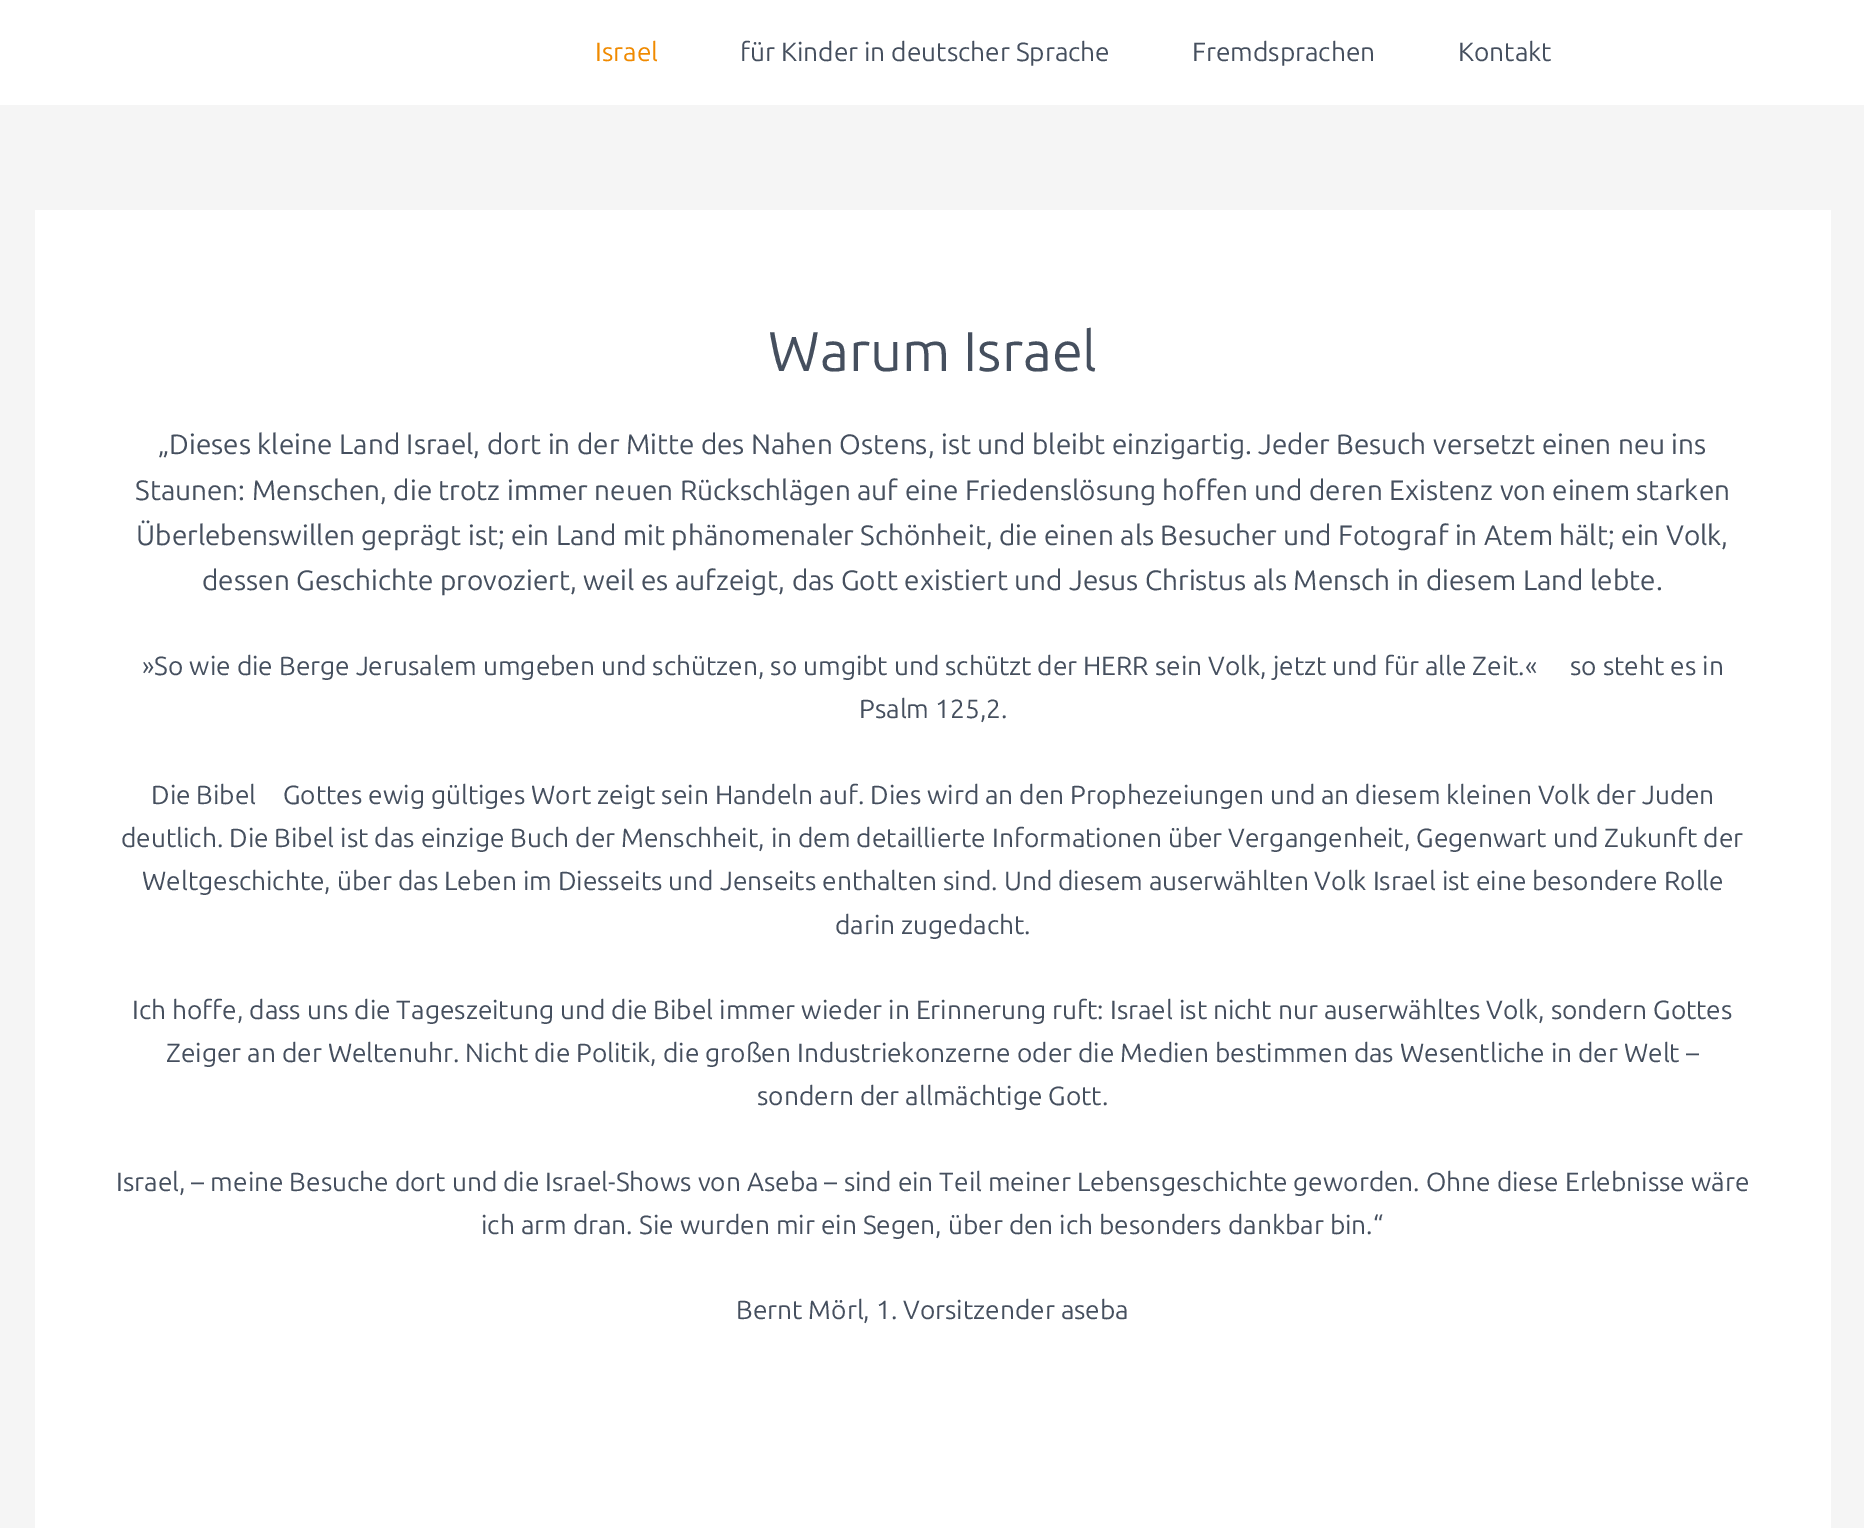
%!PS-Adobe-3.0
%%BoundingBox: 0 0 1864 1528
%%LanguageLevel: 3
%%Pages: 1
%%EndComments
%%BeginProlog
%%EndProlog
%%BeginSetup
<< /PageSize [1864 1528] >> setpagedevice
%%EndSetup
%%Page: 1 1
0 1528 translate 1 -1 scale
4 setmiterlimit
0.961 setgray
0 0 1864 1528 rectfill
1 setgray
0 0 1864 105 rectfill
35 210 1796 1318 rectfill
/Ubuntu-Regular [26.25 0 0 -26.25 0 0] selectfont
0.941 0.541 0 setrgbcolor
595 61 moveto (Israel) show
0.271 0.31 0.369 setrgbcolor
740 61 moveto (für Kinder in deutscher Sprache) show
1192 61 moveto (Fremdsprachen) show
1458 61 moveto (Kontakt) show
/Ubuntu-Regular [56 0 0 -56 0 0] selectfont
768 371 moveto (Warum Israel) show
/Ubuntu-Regular [28 0 0 -28 0 0] selectfont
158 454 moveto („Dieses kleine Land Israel, dort in der Mitte des Nahen Ostens, ist und bleibt einzigartig. Jeder Besuch versetzt einen neu ins) show
135 500 moveto (Staunen: Menschen, die trotz immer neuen Rückschlägen auf eine Friedenslösung hoffen und deren Existenz von einem starken) show
136 545 moveto (Überlebenswillen geprägt ist; ein Land mit phänomenaler Schönheit, die einen als Besucher und Fotograf in Atem hält; ein Volk,) show
202 590 moveto (dessen Geschichte provoziert, weil es aufzeigt, das Gott existiert und Jesus Christus als Mensch in diesem Land lebte.) show
/Ubuntu-Regular [26.25 0 0 -26.25 0 0] selectfont
142 675 moveto (»So wie die Berge Jerusalem umgeben und schützen, so umgibt und schützt der HERR sein Volk, jetzt und für alle Zeit.«) show
1570 675 moveto (so steht es in) show
859 718 moveto (Psalm 125,2.) show
151 804 moveto (Die Bibel) show
283 804 moveto (Gottes ewig gültiges Wort zeigt sein Handeln auf. Dies wird an den Prophezeiungen und an diesem kleinen Volk der Juden) show
121 847 moveto (deutlich. Die Bibel ist das einzige Buch der Menschheit, in dem detaillierte Informationen über Vergangenheit, Gegenwart und Zukunft der) show
142 890 moveto (Weltgeschichte, über das Leben im Diesseits und Jenseits enthalten sind. Und diesem auserwählten Volk Israel ist eine besondere Rolle) show
835 934 moveto (darin zugedacht.) show
132 1019 moveto (Ich hoffe, dass uns die Tageszeitung und die Bibel immer wieder in Erinnerung ruft: Israel ist nicht nur auserwähltes Volk, sondern Gottes) show
166 1062 moveto (Zeiger an der Weltenuhr. Nicht die Politik, die großen Industriekonzerne oder die Medien bestimmen das Wesentliche in der Welt –) show
757 1105 moveto (sondern der allmächtige Gott.) show
116 1191 moveto (Israel, – meine Besuche dort und die Israel-Shows von Aseba – sind ein Teil meiner Lebensgeschichte geworden. Ohne diese Erlebnisse wäre) show
481 1234 moveto (ich arm dran. Sie wurden mir ein Segen, über den ich besonders dankbar bin.“) show
736 1319 moveto (Bernt Mörl, 1. Vorsitzender aseba) show
showpage
%%EOF
